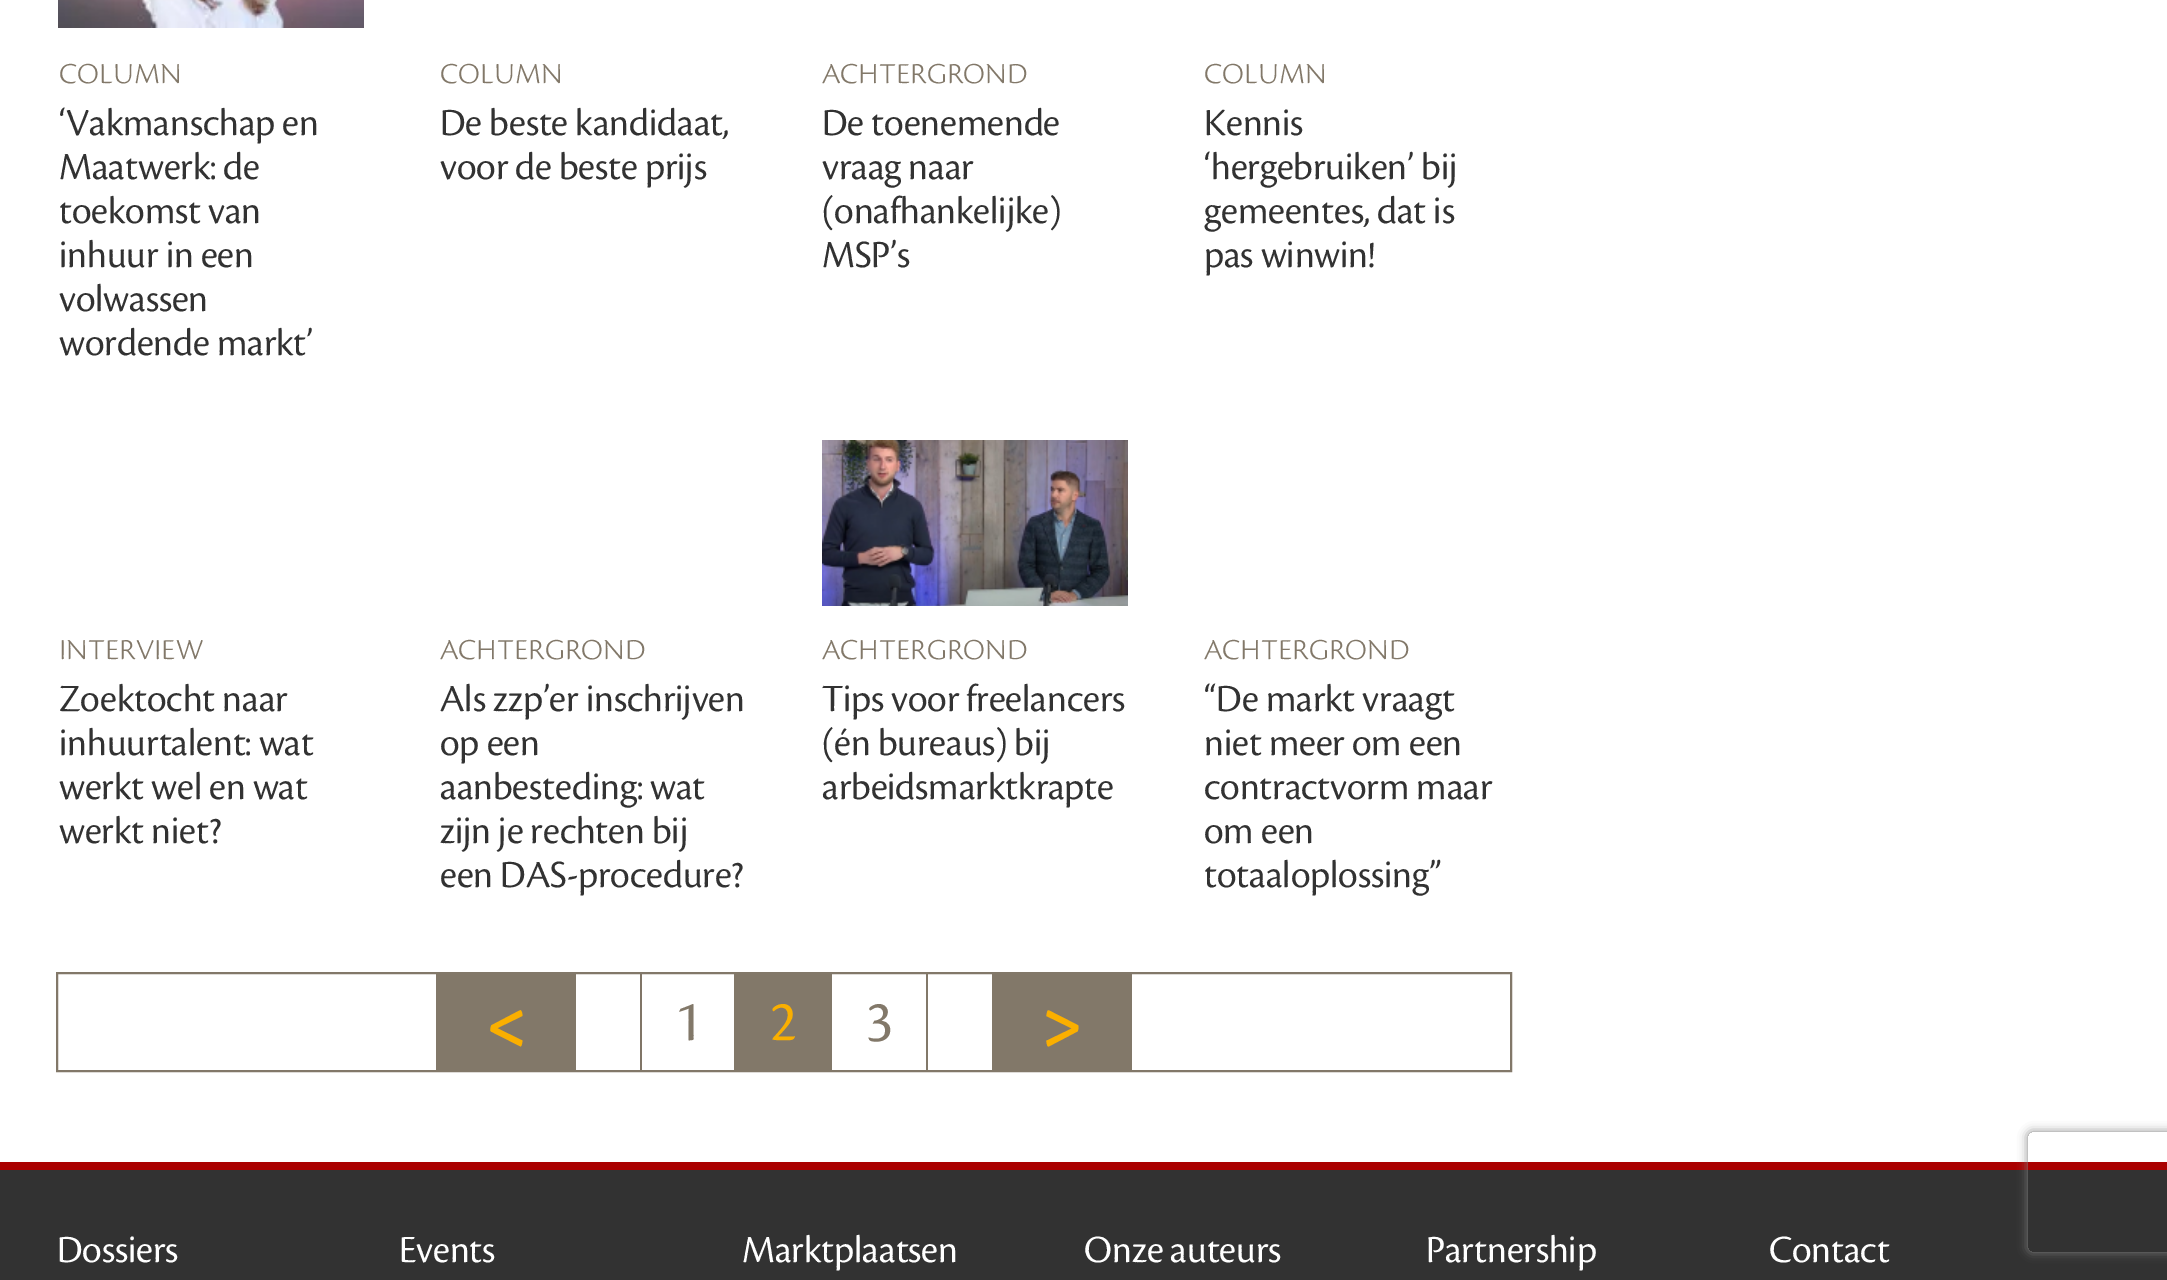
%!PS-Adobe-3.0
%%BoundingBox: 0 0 2167 1280
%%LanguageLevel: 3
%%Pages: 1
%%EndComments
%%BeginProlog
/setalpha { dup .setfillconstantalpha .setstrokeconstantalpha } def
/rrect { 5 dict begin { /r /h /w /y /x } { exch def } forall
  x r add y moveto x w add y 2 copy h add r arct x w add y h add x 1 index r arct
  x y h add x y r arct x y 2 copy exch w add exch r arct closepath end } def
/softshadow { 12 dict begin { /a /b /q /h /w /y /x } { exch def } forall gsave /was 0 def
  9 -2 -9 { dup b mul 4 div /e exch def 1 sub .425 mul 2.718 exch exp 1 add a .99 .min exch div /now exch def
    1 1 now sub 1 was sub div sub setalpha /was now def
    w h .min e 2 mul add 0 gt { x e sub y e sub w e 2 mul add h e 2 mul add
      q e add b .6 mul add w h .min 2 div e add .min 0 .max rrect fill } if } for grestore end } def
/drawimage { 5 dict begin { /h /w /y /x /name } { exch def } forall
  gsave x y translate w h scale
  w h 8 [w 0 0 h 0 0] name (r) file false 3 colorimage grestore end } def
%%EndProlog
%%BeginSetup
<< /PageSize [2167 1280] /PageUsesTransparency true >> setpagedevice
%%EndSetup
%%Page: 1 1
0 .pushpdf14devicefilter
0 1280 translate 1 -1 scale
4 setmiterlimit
1 setgray
0 0 2167 1280 rectfill
(images/1.raw) 58 0 306 28 drawimage
(images/2.raw) 822 440 306 166 drawimage
0.51 0.471 0.412 setrgbcolor
2 setlinewidth
57 973 1454 98 rectstroke
436 974 140 96 rectfill
734 974 98 96 rectfill
0.502 0.459 0.404 setrgbcolor
640 974 2 96 rectfill
0.51 0.471 0.412 setrgbcolor
926 974 2 96 rectfill
992 974 140 96 rectfill
0.196 setgray
0 1170 2167 110 rectfill
0.667 0 0 setrgbcolor
0 1162 2167 8 rectfill
gsave
newpath 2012 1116 moveto 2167 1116 lineto 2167 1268 lineto 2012 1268 lineto closepath 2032 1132 moveto 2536 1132 lineto 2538 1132 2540 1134 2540 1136 curveto 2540 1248 lineto 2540 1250 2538 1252 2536 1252 curveto 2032 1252 lineto 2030 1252 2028 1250 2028 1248 curveto 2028 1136 lineto 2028 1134 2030 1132 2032 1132 curveto closepath eoclip newpath
0.502 setgray
2028 1132 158 120 4 5 1 softshadow
grestore
/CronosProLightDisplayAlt-Light [40 0 0 -40 0 0] selectfont
0.51 0.471 0.412 setrgbcolor
59 83 moveto (column) show
/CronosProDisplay-Regular [40 0 0 -40 0 0] selectfont
0.196 setgray
59 135 moveto (‘Vakmanschap en) show
59 179 moveto (Maatwerk: de) show
59 223 moveto (toekomst van) show
59 267 moveto (inhuur in een) show
59 311 moveto (volwassen) show
59 355 moveto (wordende markt’) show
/CronosProLightDisplayAlt-Light [40 0 0 -40 0 0] selectfont
0.51 0.471 0.412 setrgbcolor
440 83 moveto (column) show
/CronosProDisplay-Regular [40 0 0 -40 0 0] selectfont
0.196 setgray
440 135 moveto (De beste kandidaat,) show
440 179 moveto (voor de beste prijs) show
/CronosProLightDisplayAlt-Light [40 0 0 -40 0 0] selectfont
0.51 0.471 0.412 setrgbcolor
822 83 moveto (achtergrond) show
/CronosProDisplay-Regular [40 0 0 -40 0 0] selectfont
0.196 setgray
822 135 moveto (De toenemende) show
822 179 moveto (vraag naar) show
822 223 moveto (\(onafhankelijke\)) show
822 267 moveto (MSP’s) show
/CronosProLightDisplayAlt-Light [40 0 0 -40 0 0] selectfont
0.51 0.471 0.412 setrgbcolor
1204 83 moveto (column) show
/CronosProDisplay-Regular [40 0 0 -40 0 0] selectfont
0.196 setgray
1204 135 moveto (Kennis) show
1204 179 moveto (‘hergebruiken’ bij) show
1204 223 moveto (gemeentes, dat is) show
1204 267 moveto (pas winwin!) show
/CronosProLightDisplayAlt-Light [40 0 0 -40 0 0] selectfont
0.51 0.471 0.412 setrgbcolor
59 659 moveto (interview) show
/CronosProDisplay-Regular [40 0 0 -40 0 0] selectfont
0.196 setgray
59 711 moveto (Zoektocht naar) show
59 755 moveto (inhuurtalent: wat) show
59 799 moveto (werkt wel en wat) show
59 843 moveto (werkt niet?) show
/CronosProLightDisplayAlt-Light [40 0 0 -40 0 0] selectfont
0.51 0.471 0.412 setrgbcolor
440 659 moveto (achtergrond) show
/CronosProDisplay-Regular [40 0 0 -40 0 0] selectfont
0.196 setgray
440 711 moveto (Als zzp’er inschrijven) show
440 755 moveto (op een) show
440 799 moveto (aanbesteding: wat) show
440 843 moveto (zijn je rechten bij) show
440 887 moveto (een DAS-procedure?) show
/CronosProLightDisplayAlt-Light [40 0 0 -40 0 0] selectfont
0.51 0.471 0.412 setrgbcolor
822 659 moveto (achtergrond) show
/CronosProDisplay-Regular [40 0 0 -40 0 0] selectfont
0.196 setgray
822 711 moveto (Tips voor freelancers) show
822 755 moveto (\(én bureaus\) bij) show
822 799 moveto (arbeidsmarktkrapte) show
/CronosProLightDisplayAlt-Light [40 0 0 -40 0 0] selectfont
0.51 0.471 0.412 setrgbcolor
1204 659 moveto (achtergrond) show
/CronosProDisplay-Regular [40 0 0 -40 0 0] selectfont
0.196 setgray
1204 711 moveto (“De markt vraagt) show
1204 755 moveto (niet meer om een) show
1204 799 moveto (contractvorm maar) show
1204 843 moveto (om een) show
1204 887 moveto (totaaloplossing”) show
/CronosProDisplay-Bold [80 0 0 -80 0 0] selectfont
0.98 0.686 0 setrgbcolor
484 1046 moveto (<) show
/CronosProDisplay-Regular [60 0 0 -60 0 0] selectfont
0.51 0.471 0.412 setrgbcolor
675 1040 moveto (1) show
0.98 0.686 0 setrgbcolor
770 1040 moveto (2) show
0.51 0.471 0.412 setrgbcolor
866 1040 moveto (3) show
/CronosProDisplay-Bold [80 0 0 -80 0 0] selectfont
0.98 0.686 0 setrgbcolor
1040 1046 moveto (>) show
/CronosProDisplay-Regular [40 0 0 -40 0 0] selectfont
1 setgray
57 1262 moveto (Dossiers) show
399 1262 moveto (Events) show
742 1262 moveto (Marktplaatsen) show
1084 1262 moveto (Onze auteurs) show
1426 1262 moveto (Partnership) show
1769 1262 moveto (Contact) show
.poppdf14devicefilter showpage
%%EOF
